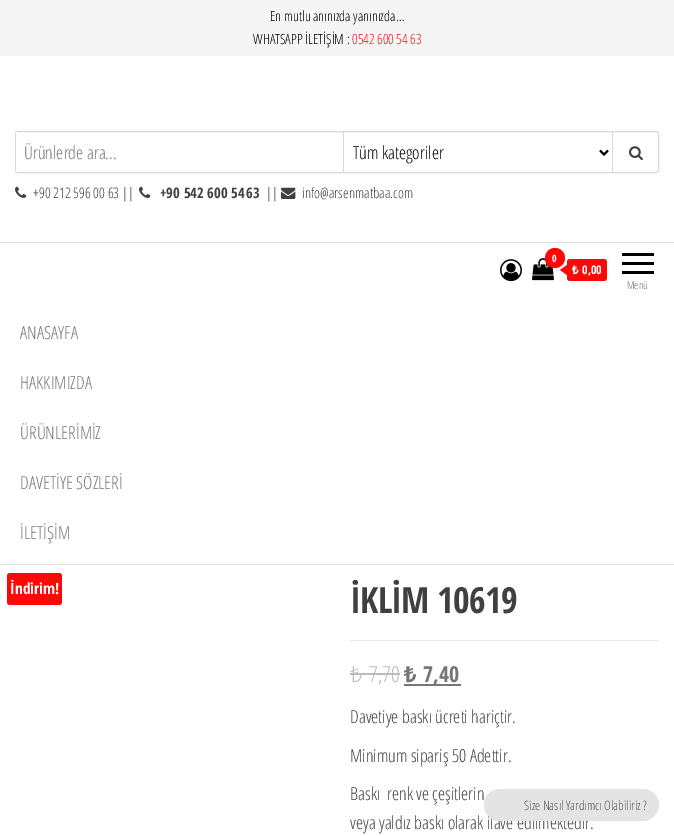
%!PS-Adobe-3.0
%%BoundingBox: 0 0 674 836
%%LanguageLevel: 3
%%Pages: 1
%%EndComments
%%BeginProlog
/rrect { 5 dict begin { /r /h /w /y /x } { exch def } forall
  x r add y moveto x w add y 2 copy h add r arct x w add y h add x 1 index r arct
  x y h add x y r arct x y 2 copy exch w add exch r arct closepath end } def
/drawimage { 5 dict begin { /h /w /y /x /name } { exch def } forall
  gsave x y translate w h scale
  w h 8 [w 0 0 h 0 0] name (r) file false 3 colorimage grestore end } def
%%EndProlog
%%BeginSetup
<< /PageSize [674 836] >> setpagedevice
%%EndSetup
%%Page: 1 1
0 836 translate 1 -1 scale
4 setmiterlimit
1 setgray
0 0 674 836 rectfill
0.961 setgray
0 0 674 56 rectfill
0.851 setgray
15.5 131.5 643 41 2.5 rrect stroke
1 setgray
16 132 2 40 rectfill
0.851 setgray
343 132 1 40 rectfill
0 setgray
2 setlinewidth
newpath 600 150.5 moveto 604 154.5 lineto 608 150.5 lineto stroke
0.851 setgray
612 132 1 40 rectfill
(images/1.raw) 629 146 14 15 drawimage
(images/2.raw) 15 186 12 12 drawimage
(images/2.raw) 139 186 12 12 drawimage
(images/3.raw) 281 187 15 12 drawimage
0.886 setgray
0 242 674 1 rectfill
0 564 674 1 rectfill
(images/4.raw) 500 259 22 23 drawimage
(images/5.raw) 532 258 22 23 drawimage
1 0.027 0.027 setrgbcolor
newpath 555 258 10 0 360 arc closepath fill
567 259 40 22 3 rrect fill
newpath 567 265 moveto 567 275 lineto 560 270 lineto closepath fill
0 setgray
622 253 32 3 rectfill
622 262 32 3 rectfill
622 271 32 3 rectfill
1 0.027 0.027 setrgbcolor
7 573 55 32 3 rrect fill
0.918 setgray
350 640 309 1 rectfill
0.733 setgray
350 673 13 2 rectfill
363 673 37 2 rectfill
0.467 setgray
404 684 57 2 rectfill
/OpenSansCondensed-Light [14 0 0 -14 0 0] selectfont
0 setgray
270 21 moveto (En mutlu anınızda yanınızda…) show
253 44 moveto (WHATSAPP İLETİŞİM :) show
1 0.027 0.027 setrgbcolor
352 44 moveto (0542 600 54 63) show
/OpenSansCondensed-Light [18 0 0 -18 0 0] selectfont
0.459 setgray
24 159 moveto (Ürünlerde ara...) show
0 setgray
353 159 moveto (Tüm kategoriler) show
/OpenSansCondensed-Light [14.5 0 0 -14.5 0 0] selectfont
0.251 setgray
33 198 moveto (+90 212 596 00 63 ||) show
/OpenSansCondensed-Bold [14.5 0 0 -14.5 0 0] selectfont
160 198 moveto (+90 542 600 54) show
246 198 moveto (63) show
/OpenSansCondensed-Light [14.5 0 0 -14.5 0 0] selectfont
266 198 moveto (||) show
302 198 moveto (info@arsenmatbaa.com) show
/OpenSansCondensed-Bold [10 0 0 -10 0 0] selectfont
1 setgray
552 262 moveto (0) show
/NotoSans-Bold [12 0 0 -12 0 0] selectfont
572 274 moveto (₺) show
/OpenSansCondensed-Bold [12 0 0 -12 0 0] selectfont
582 274 moveto (0,00) show
/OpenSansCondensed-Light [11 0 0 -11 0 0] selectfont
0.459 setgray
627 289 moveto (Menü) show
/OpenSansCondensed-Light [18 0 0 -18 0 0] selectfont
20 339 moveto (ANASAYFA) show
20 389 moveto (HAKKIMIZDA) show
20 439 moveto (ÜRÜNLERİMİZ) show
20 489 moveto (DAVETİYE SÖZLERİ) show
20 539 moveto (İLETİŞİM) show
/OpenSansCondensed-Bold [15.5 0 0 -15.5 0 0] selectfont
1 setgray
10 594 moveto (İndirim!) show
/OpenSansCondensed-Bold [36 0 0 -36 0 0] selectfont
0.251 setgray
350 613 moveto -0.75 0 (İKLİM 10619) ashow
/NotoSans-Light [22 0 0 -22 0 0] selectfont
0.733 setgray
350 682 moveto (₺) show
/OpenSansCondensed-Light [22 0 0 -22 0 0] selectfont
369 682 moveto (7,70) show
/NotoSans-Bold [22 0 0 -22 0 0] selectfont
0.459 setgray
404 682 moveto (₺) show
/OpenSansCondensed-Bold [22 0 0 -22 0 0] selectfont
423 682 moveto (7,40) show
/OpenSansCondensed-Light [18 0 0 -18 0 0] selectfont
0.251 setgray
350 723 moveto (Davetiye baskı ücreti hariçtir.) show
350 762 moveto (Minimum sipariş 50 Adettir.) show
350 800 moveto (Baskı  renk ve çeşitlerin) show
350 829 moveto (veya yaldız baskı olarak ilave edilmektedir.) show
0.894 setgray
484 789 175 32 16 rrect fill
/OpenSansCondensed-Light [13 0 0 -13 0 0] selectfont
0.357 setgray
524 810 moveto (Size Nasıl Yardımcı Olabiliriz ?) show
showpage
%%EOF
